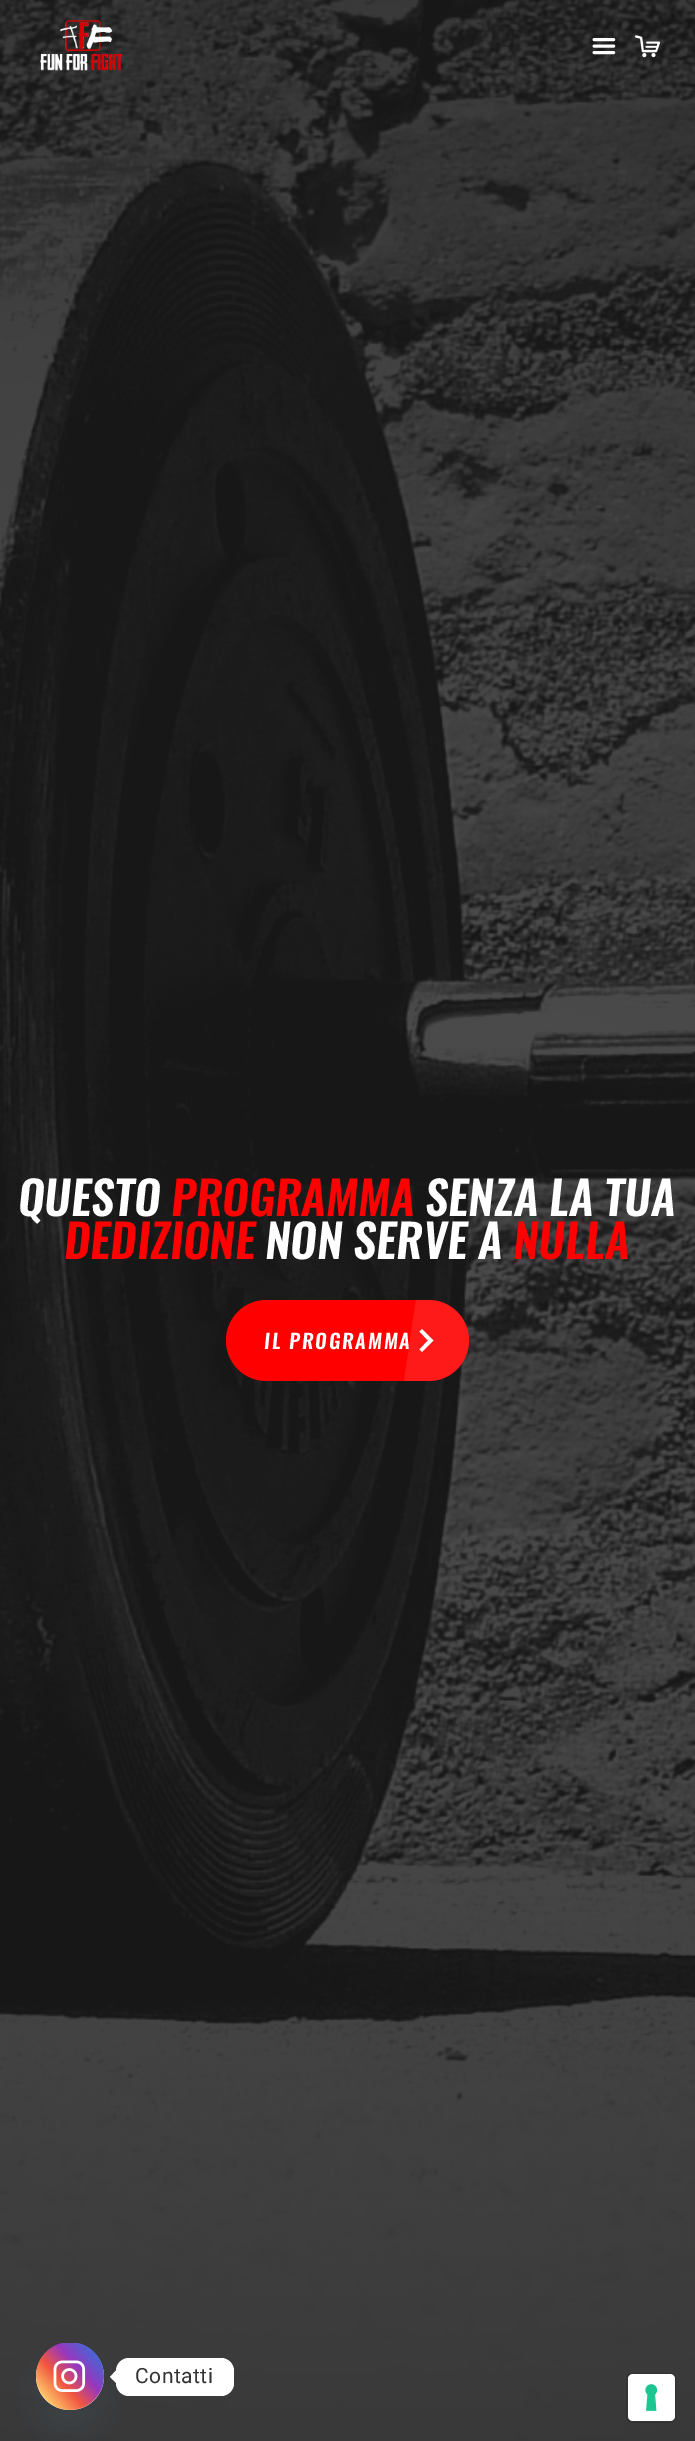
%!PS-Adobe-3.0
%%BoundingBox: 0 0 695 2441
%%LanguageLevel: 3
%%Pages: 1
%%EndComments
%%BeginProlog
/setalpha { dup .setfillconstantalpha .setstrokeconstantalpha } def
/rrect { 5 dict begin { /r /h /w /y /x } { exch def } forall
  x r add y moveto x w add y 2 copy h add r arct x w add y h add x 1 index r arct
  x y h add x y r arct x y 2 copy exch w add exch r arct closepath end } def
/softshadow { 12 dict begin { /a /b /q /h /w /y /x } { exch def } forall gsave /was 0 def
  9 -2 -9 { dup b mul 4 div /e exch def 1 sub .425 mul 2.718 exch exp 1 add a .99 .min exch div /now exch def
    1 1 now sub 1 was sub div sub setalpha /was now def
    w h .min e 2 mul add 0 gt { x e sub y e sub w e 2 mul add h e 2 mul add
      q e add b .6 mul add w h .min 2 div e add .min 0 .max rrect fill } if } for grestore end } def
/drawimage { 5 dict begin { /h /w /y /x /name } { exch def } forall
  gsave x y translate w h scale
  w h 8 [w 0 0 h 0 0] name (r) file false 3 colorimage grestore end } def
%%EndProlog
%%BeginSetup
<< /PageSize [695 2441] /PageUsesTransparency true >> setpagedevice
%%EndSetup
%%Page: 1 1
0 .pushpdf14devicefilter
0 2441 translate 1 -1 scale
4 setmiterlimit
1 setgray
0 0 695 2441 rectfill
(images/4.raw) 0 0 695 2441 drawimage
(images/1.raw) 40 20 83 51 drawimage
(images/2.raw) 592 38 24 17 drawimage
(images/3.raw) 635 35 25 23 drawimage
1 0 0 setrgbcolor
226 1300 243 81 40.5 rrect fill
0.1 setalpha
1 setgray
newpath 404 1381 moveto 416 1300 lineto 428 1300 lineto 451 1300 469 1318 469 1340 curveto 469 1363 451 1381 428 1381 curveto closepath fill
1 setalpha
newpath 422 1329 moveto 419.5 1331.5 lineto 428 1340.5 lineto 419.5 1349.5 lineto 422 1352 lineto 433.5 1340.5 lineto closepath fill
0.286 0.408 0.494 setrgbcolor
36 2363 68 67 33.5 15 0.16 softshadow
1 setgray
36 2343 68 67 33.5 rrect fill
(images/5.raw) 36 2343 68 67 drawimage
116 2358 118 38 13 rrect fill
newpath 116 2370.5 moveto 116 2383 lineto 110 2377 lineto closepath fill
0.192 setgray
626.5 2373.5 49 49 5.5 rrect stroke
1 setgray
628 2374 47 47 5 rrect fill
(images/6.raw) 645 2384 13 27 drawimage
/Oswald-SemiBoldItalic [46.25 0 0 -46.25 0 0] selectfont
18 1216 moveto (QUESTO) show
1 0 0 setrgbcolor
171 1216 moveto (PROGRAMMA) show
1 setgray
425 1216 moveto (SENZA LA TUA) show
1 0 0 setrgbcolor
64 1259 moveto (DEDIZIONE) show
1 setgray
265 1259 moveto (NON SERVE A) show
1 0 0 setrgbcolor
513 1259 moveto (NULLA) show
/Oswald-SemiBoldItalic [20 0 0 -20 0 0] selectfont
1 setgray
264 1349 moveto 2 0 (IL PROGRAMMA) ashow
/Roboto-Regular [21 0 0 -21 0 0] selectfont
0.2 setgray
135 2383 moveto 0.5 0 (Contatti) ashow
.poppdf14devicefilter showpage
%%EOF
